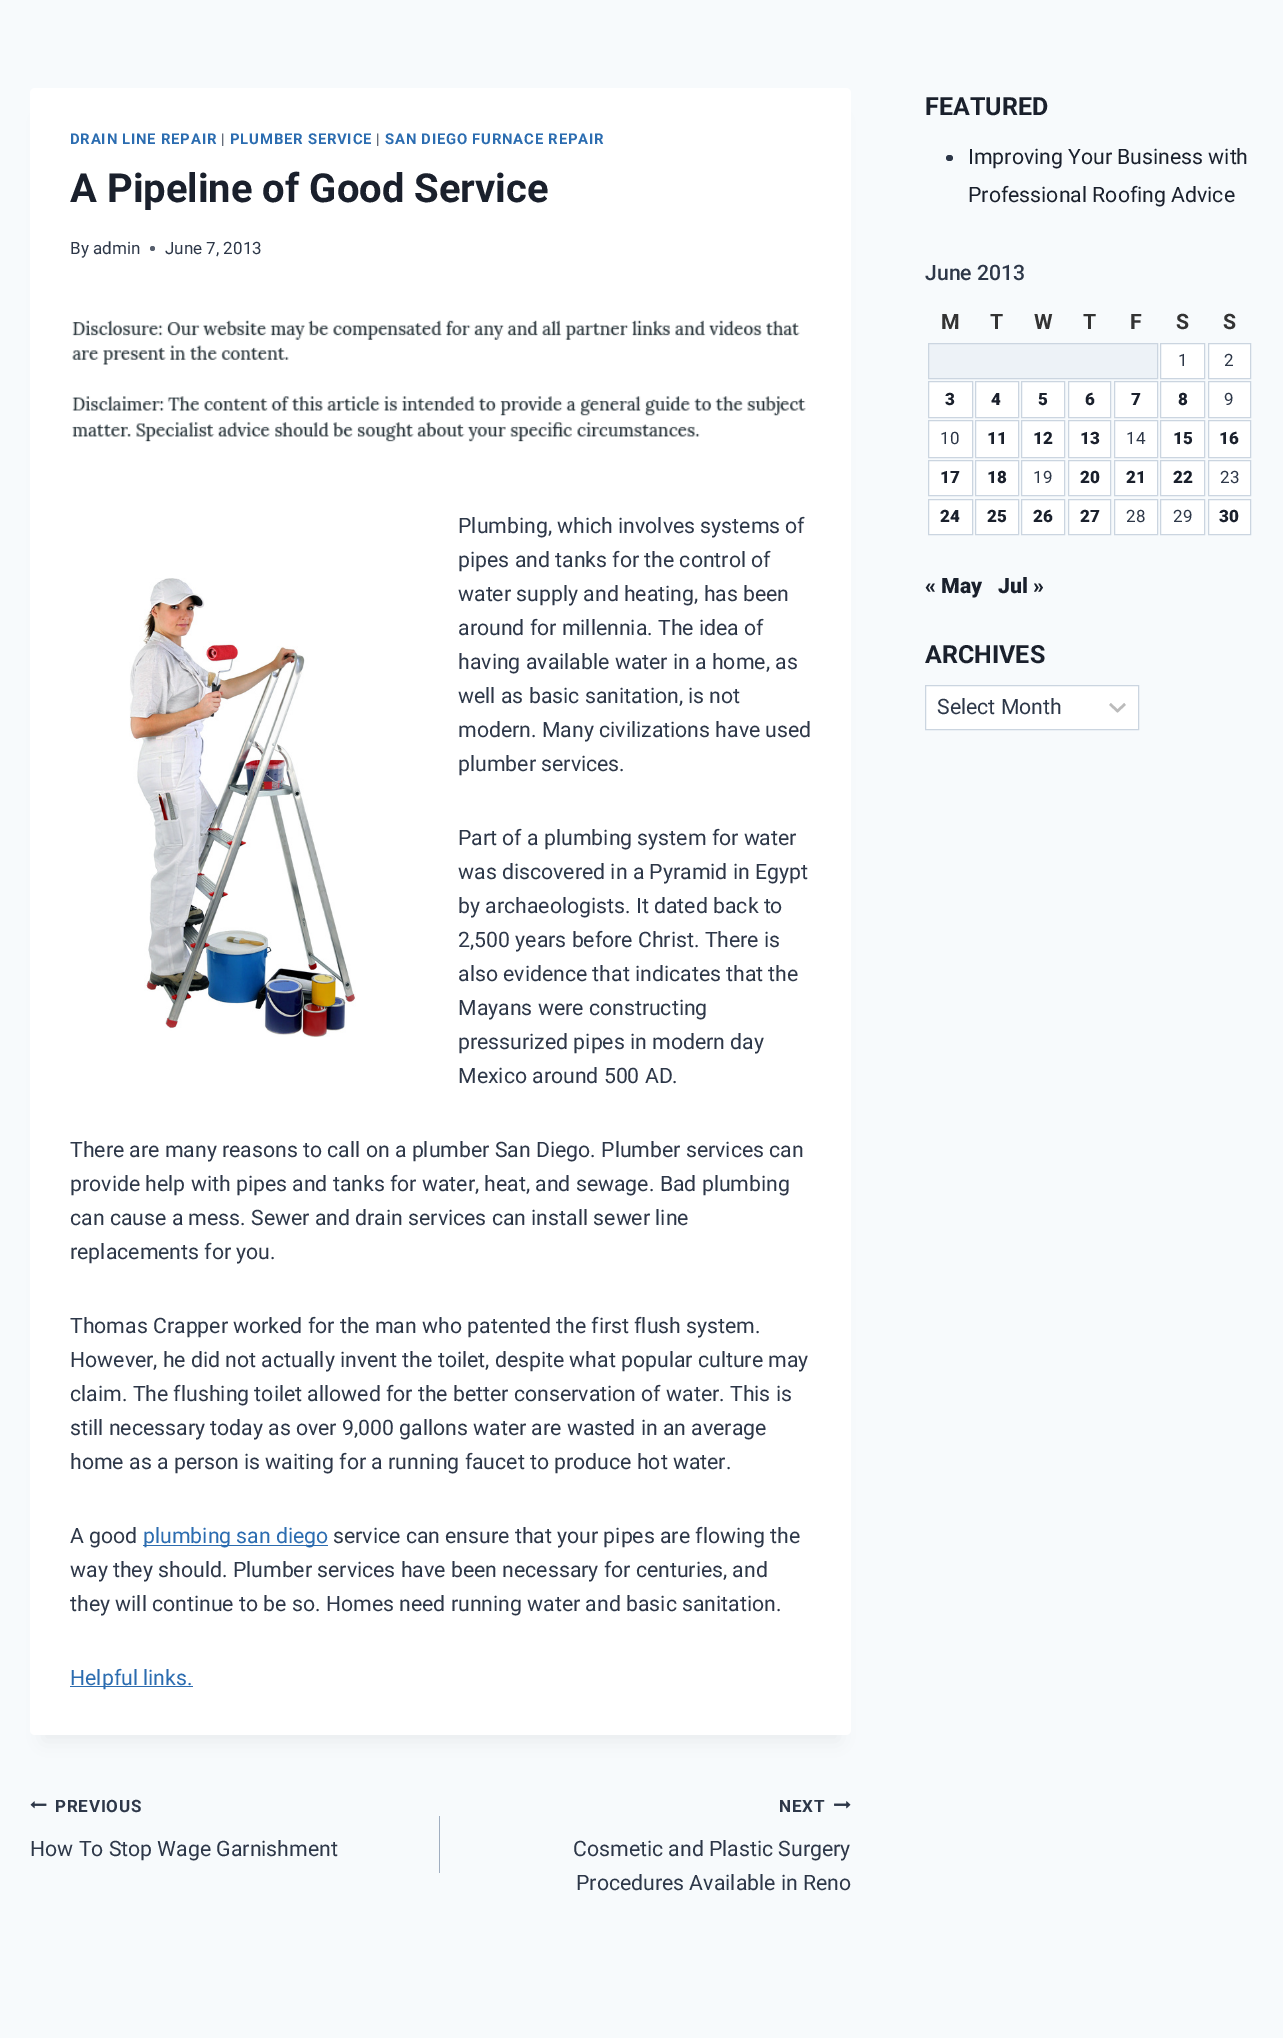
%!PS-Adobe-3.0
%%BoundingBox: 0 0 1283 2038
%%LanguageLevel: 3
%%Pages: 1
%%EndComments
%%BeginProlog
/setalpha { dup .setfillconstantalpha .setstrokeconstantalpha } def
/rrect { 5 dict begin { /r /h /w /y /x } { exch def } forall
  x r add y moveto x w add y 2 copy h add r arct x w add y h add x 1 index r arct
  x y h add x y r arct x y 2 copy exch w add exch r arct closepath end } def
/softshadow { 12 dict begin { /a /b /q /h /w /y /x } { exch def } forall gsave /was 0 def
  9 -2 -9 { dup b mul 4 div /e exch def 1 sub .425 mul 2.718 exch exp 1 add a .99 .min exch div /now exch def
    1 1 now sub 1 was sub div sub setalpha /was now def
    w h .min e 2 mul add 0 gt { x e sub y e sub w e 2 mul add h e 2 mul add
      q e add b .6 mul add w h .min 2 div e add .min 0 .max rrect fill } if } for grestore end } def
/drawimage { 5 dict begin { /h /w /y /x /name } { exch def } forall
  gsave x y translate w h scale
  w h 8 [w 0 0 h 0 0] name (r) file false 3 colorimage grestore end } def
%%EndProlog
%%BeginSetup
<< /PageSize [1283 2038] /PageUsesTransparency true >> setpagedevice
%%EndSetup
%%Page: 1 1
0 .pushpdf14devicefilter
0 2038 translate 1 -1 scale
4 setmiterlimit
0.969 0.98 0.988 setrgbcolor
0 0 1283 2038 rectfill
0 setgray
43 119 796 1622 0 9.5 0.05 softshadow
1 setgray
30 88 821 1647 5 rrect fill
0.341 0.373 0.427 setrgbcolor
newpath 152.5 248.5 2.5 0 360 arc closepath fill
(images/1.raw) 72 320 734 122 drawimage
(images/2.raw) 129 578 227 459 drawimage
0.169 0.424 0.69 setrgbcolor
143 1545 185 1 rectfill
70 1686 123 1 rectfill
(images/3.raw) 30 1801 17 8 drawimage
0.627 0.682 0.753 setrgbcolor
439 1816 1 57 rectfill
(images/4.raw) 834 1801 17 8 drawimage
0.176 0.216 0.282 setrgbcolor
946 155 7 6 3 rrect fill
0.929 0.949 0.969 setrgbcolor
newpath 928.5 343.5 moveto 1157.5 343.5 lineto 1157.5 378.5 lineto 928.5 378.5 lineto closepath gsave fill grestore
0.796 0.835 0.878 setrgbcolor
stroke
1 setgray
newpath 1160.5 343.5 moveto 1204.5 343.5 lineto 1204.5 378.5 lineto 1160.5 378.5 lineto closepath gsave fill grestore
0.796 0.835 0.878 setrgbcolor
stroke
1 setgray
newpath 1208.5 343.5 moveto 1250.5 343.5 lineto 1250.5 378.5 lineto 1208.5 378.5 lineto closepath gsave fill grestore
0.796 0.835 0.878 setrgbcolor
stroke
1 setgray
newpath 928.5 381.5 moveto 972.5 381.5 lineto 972.5 417.5 lineto 928.5 417.5 lineto closepath gsave fill grestore
0.796 0.835 0.878 setrgbcolor
stroke
1 setgray
newpath 975.5 381.5 moveto 1018.5 381.5 lineto 1018.5 417.5 lineto 975.5 417.5 lineto closepath gsave fill grestore
0.796 0.835 0.878 setrgbcolor
stroke
1 setgray
newpath 1021.5 381.5 moveto 1064.5 381.5 lineto 1064.5 417.5 lineto 1021.5 417.5 lineto closepath gsave fill grestore
0.796 0.835 0.878 setrgbcolor
stroke
1 setgray
newpath 1068.5 381.5 moveto 1110.5 381.5 lineto 1110.5 417.5 lineto 1068.5 417.5 lineto closepath gsave fill grestore
0.796 0.835 0.878 setrgbcolor
stroke
1 setgray
newpath 1114.5 381.5 moveto 1157.5 381.5 lineto 1157.5 417.5 lineto 1114.5 417.5 lineto closepath gsave fill grestore
0.796 0.835 0.878 setrgbcolor
stroke
1 setgray
newpath 1160.5 381.5 moveto 1204.5 381.5 lineto 1204.5 417.5 lineto 1160.5 417.5 lineto closepath gsave fill grestore
0.796 0.835 0.878 setrgbcolor
stroke
1 setgray
newpath 1208.5 381.5 moveto 1250.5 381.5 lineto 1250.5 417.5 lineto 1208.5 417.5 lineto closepath gsave fill grestore
0.796 0.835 0.878 setrgbcolor
stroke
1 setgray
newpath 928.5 420.5 moveto 972.5 420.5 lineto 972.5 457.5 lineto 928.5 457.5 lineto closepath gsave fill grestore
0.796 0.835 0.878 setrgbcolor
stroke
1 setgray
newpath 975.5 420.5 moveto 1018.5 420.5 lineto 1018.5 457.5 lineto 975.5 457.5 lineto closepath gsave fill grestore
0.796 0.835 0.878 setrgbcolor
stroke
1 setgray
newpath 1021.5 420.5 moveto 1064.5 420.5 lineto 1064.5 457.5 lineto 1021.5 457.5 lineto closepath gsave fill grestore
0.796 0.835 0.878 setrgbcolor
stroke
1 setgray
newpath 1068.5 420.5 moveto 1110.5 420.5 lineto 1110.5 457.5 lineto 1068.5 457.5 lineto closepath gsave fill grestore
0.796 0.835 0.878 setrgbcolor
stroke
1 setgray
newpath 1114.5 420.5 moveto 1157.5 420.5 lineto 1157.5 457.5 lineto 1114.5 457.5 lineto closepath gsave fill grestore
0.796 0.835 0.878 setrgbcolor
stroke
1 setgray
newpath 1160.5 420.5 moveto 1204.5 420.5 lineto 1204.5 457.5 lineto 1160.5 457.5 lineto closepath gsave fill grestore
0.796 0.835 0.878 setrgbcolor
stroke
1 setgray
newpath 1208.5 420.5 moveto 1250.5 420.5 lineto 1250.5 457.5 lineto 1208.5 457.5 lineto closepath gsave fill grestore
0.796 0.835 0.878 setrgbcolor
stroke
1 setgray
newpath 928.5 460.5 moveto 972.5 460.5 lineto 972.5 495.5 lineto 928.5 495.5 lineto closepath gsave fill grestore
0.796 0.835 0.878 setrgbcolor
stroke
1 setgray
newpath 975.5 460.5 moveto 1018.5 460.5 lineto 1018.5 495.5 lineto 975.5 495.5 lineto closepath gsave fill grestore
0.796 0.835 0.878 setrgbcolor
stroke
1 setgray
newpath 1021.5 460.5 moveto 1064.5 460.5 lineto 1064.5 495.5 lineto 1021.5 495.5 lineto closepath gsave fill grestore
0.796 0.835 0.878 setrgbcolor
stroke
1 setgray
newpath 1068.5 460.5 moveto 1110.5 460.5 lineto 1110.5 495.5 lineto 1068.5 495.5 lineto closepath gsave fill grestore
0.796 0.835 0.878 setrgbcolor
stroke
1 setgray
newpath 1114.5 460.5 moveto 1157.5 460.5 lineto 1157.5 495.5 lineto 1114.5 495.5 lineto closepath gsave fill grestore
0.796 0.835 0.878 setrgbcolor
stroke
1 setgray
newpath 1160.5 460.5 moveto 1204.5 460.5 lineto 1204.5 495.5 lineto 1160.5 495.5 lineto closepath gsave fill grestore
0.796 0.835 0.878 setrgbcolor
stroke
1 setgray
newpath 1208.5 460.5 moveto 1250.5 460.5 lineto 1250.5 495.5 lineto 1208.5 495.5 lineto closepath gsave fill grestore
0.796 0.835 0.878 setrgbcolor
stroke
1 setgray
newpath 928.5 499.5 moveto 972.5 499.5 lineto 972.5 534.5 lineto 928.5 534.5 lineto closepath gsave fill grestore
0.796 0.835 0.878 setrgbcolor
stroke
1 setgray
newpath 975.5 499.5 moveto 1018.5 499.5 lineto 1018.5 534.5 lineto 975.5 534.5 lineto closepath gsave fill grestore
0.796 0.835 0.878 setrgbcolor
stroke
1 setgray
newpath 1021.5 499.5 moveto 1064.5 499.5 lineto 1064.5 534.5 lineto 1021.5 534.5 lineto closepath gsave fill grestore
0.796 0.835 0.878 setrgbcolor
stroke
1 setgray
newpath 1068.5 499.5 moveto 1110.5 499.5 lineto 1110.5 534.5 lineto 1068.5 534.5 lineto closepath gsave fill grestore
0.796 0.835 0.878 setrgbcolor
stroke
1 setgray
newpath 1114.5 499.5 moveto 1157.5 499.5 lineto 1157.5 534.5 lineto 1114.5 534.5 lineto closepath gsave fill grestore
0.796 0.835 0.878 setrgbcolor
stroke
1 setgray
newpath 1160.5 499.5 moveto 1204.5 499.5 lineto 1204.5 534.5 lineto 1160.5 534.5 lineto closepath gsave fill grestore
0.796 0.835 0.878 setrgbcolor
stroke
1 setgray
newpath 1208.5 499.5 moveto 1250.5 499.5 lineto 1250.5 534.5 lineto 1208.5 534.5 lineto closepath gsave fill grestore
0.796 0.835 0.878 setrgbcolor
stroke
1 setgray
926 686 212 43 rectfill
0.733 setgray
2.5 setlinewidth
newpath 1110 704 moveto 1117.5 711 lineto 1125 704 lineto stroke
0.796 0.835 0.878 setrgbcolor
1 setlinewidth
925.5 685.5 213 44 rectstroke
/Roboto-Bold [14.9 0 0 -14.9 0 0] selectfont
0.169 0.424 0.69 setrgbcolor
70 144 moveto 0.75 0 (DRAIN LINE REPAIR) ashow
/Roboto-Regular [14.9 0 0 -14.9 0 0] selectfont
0.176 0.216 0.282 setrgbcolor
221 144 moveto 0.75 0 (|) ashow
/Roboto-Bold [14.9 0 0 -14.9 0 0] selectfont
0.169 0.424 0.69 setrgbcolor
230 144 moveto 0.75 0 (PLUMBER SERVICE) ashow
/Roboto-Regular [14.9 0 0 -14.9 0 0] selectfont
0.176 0.216 0.282 setrgbcolor
376 144 moveto 0.75 0 (|) ashow
/Roboto-Bold [14.9 0 0 -14.9 0 0] selectfont
0.169 0.424 0.69 setrgbcolor
385 144 moveto 0.75 0 (SAN DIEGO FURNACE REPAIR) ashow
/Roboto-Bold [40 0 0 -40 0 0] selectfont
0.102 0.125 0.173 setrgbcolor
70 202 moveto (A Pipeline of Good Service) show
/Roboto-Regular [17 0 0 -17 0 0] selectfont
0.176 0.216 0.282 setrgbcolor
70 254 moveto (By admin) show
165 254 moveto (June 7, 2013) show
/Roboto-Regular [21.25 0 0 -21.25 0 0] selectfont
458 533 moveto (Plumbing, which involves systems of) show
458 567 moveto (pipes and tanks for the control of) show
458 601 moveto (water supply and heating, has been) show
458 635 moveto (around for millennia. The idea of) show
458 669 moveto (having available water in a home, as) show
458 703 moveto (well as basic sanitation, is not) show
458 737 moveto (modern. Many civilizations have used) show
458 771 moveto (plumber services.) show
458 845 moveto (Part of a plumbing system for water) show
458 879 moveto (was discovered in a Pyramid in Egypt) show
458 913 moveto (by archaeologists. It dated back to) show
458 947 moveto (2,500 years before Christ. There is) show
458 981 moveto (also evidence that indicates that the) show
458 1015 moveto (Mayans were constructing) show
458 1049 moveto (pressurized pipes in modern day) show
458 1083 moveto (Mexico around 500 AD.) show
70 1157 moveto (There are many reasons to call on a plumber San Diego. Plumber services can) show
70 1191 moveto (provide help with pipes and tanks for water, heat, and sewage. Bad plumbing) show
70 1225 moveto (can cause a mess. Sewer and drain services can install sewer line) show
70 1259 moveto (replacements for you.) show
70 1333 moveto (Thomas Crapper worked for the man who patented the first flush system.) show
70 1367 moveto (However, he did not actually invent the toilet, despite what popular culture may) show
70 1401 moveto (claim. The flushing toilet allowed for the better conservation of water. This is) show
70 1435 moveto (still necessary today as over 9,000 gallons water are wasted in an average) show
70 1469 moveto (home as a person is waiting for a running faucet to produce hot water.) show
70 1543 moveto (A good) show
0.169 0.424 0.69 setrgbcolor
143 1543 moveto (plumbing san diego) show
0.176 0.216 0.282 setrgbcolor
333 1543 moveto (service can ensure that your pipes are flowing the) show
70 1577 moveto (way they should. Plumber services have been necessary for centuries, and) show
70 1611 moveto (they will continue to be so. Homes need running water and basic sanitation.) show
0.169 0.424 0.69 setrgbcolor
70 1685 moveto (Helpful links.) show
/Roboto-Bold [17 0 0 -17 0 0] selectfont
0.176 0.216 0.282 setrgbcolor
55 1812 moveto 0.75 0 (PREVIOUS) ashow
/Roboto-Regular [21.25 0 0 -21.25 0 0] selectfont
30 1856 moveto (How To Stop Wage Garnishment) show
/Roboto-Bold [17 0 0 -17 0 0] selectfont
779 1812 moveto 0.75 0 (NEXT) ashow
/Roboto-Regular [21.25 0 0 -21.25 0 0] selectfont
573 1856 moveto (Cosmetic and Plastic Surgery) show
576 1890 moveto (Procedures Available in Reno) show
/Roboto-Bold [25 0 0 -25 0 0] selectfont
0.102 0.125 0.173 setrgbcolor
925 115 moveto (FEATURED) show
/Roboto-Regular [21.25 0 0 -21.25 0 0] selectfont
968 164 moveto (Improving Your Business with) show
968 202 moveto (Professional Roofing Advice) show
/Roboto-Medium [21.25 0 0 -21.25 0 0] selectfont
0.176 0.216 0.282 setrgbcolor
925 280 moveto (June 2013) show
/Roboto-Bold [21.25 0 0 -21.25 0 0] selectfont
0.2 setgray
941 329 moveto (M) show
990 329 moveto (T) show
1034 329 moveto (W) show
1083 329 moveto (T) show
1130 329 moveto (F) show
1176 329 moveto (S) show
1223 329 moveto (S) show
/Roboto-Regular [17 0 0 -17 0 0] selectfont
0.176 0.216 0.282 setrgbcolor
1178 366 moveto (1) show
1224 366 moveto (2) show
/Roboto-Black [17 0 0 -17 0 0] selectfont
0.102 0.125 0.173 setrgbcolor
945 405 moveto (3) show
991 405 moveto (4) show
1038 405 moveto (5) show
1085 405 moveto (6) show
1131 405 moveto (7) show
1178 405 moveto (8) show
/Roboto-Regular [17 0 0 -17 0 0] selectfont
0.176 0.216 0.282 setrgbcolor
1224 405 moveto (9) show
940 444 moveto (10) show
/Roboto-Black [17 0 0 -17 0 0] selectfont
0.102 0.125 0.173 setrgbcolor
987 444 moveto (11) show
1033 444 moveto (12) show
1080 444 moveto (13) show
/Roboto-Regular [17 0 0 -17 0 0] selectfont
0.176 0.216 0.282 setrgbcolor
1126 444 moveto (14) show
/Roboto-Black [17 0 0 -17 0 0] selectfont
0.102 0.125 0.173 setrgbcolor
1173 444 moveto (15) show
1219 444 moveto (16) show
940 483 moveto (17) show
987 483 moveto (18) show
/Roboto-Regular [17 0 0 -17 0 0] selectfont
0.176 0.216 0.282 setrgbcolor
1033 483 moveto (19) show
/Roboto-Black [17 0 0 -17 0 0] selectfont
0.102 0.125 0.173 setrgbcolor
1080 483 moveto (20) show
1126 483 moveto (21) show
1173 483 moveto (22) show
/Roboto-Regular [17 0 0 -17 0 0] selectfont
0.176 0.216 0.282 setrgbcolor
1220 483 moveto (23) show
/Roboto-Black [17 0 0 -17 0 0] selectfont
0.102 0.125 0.173 setrgbcolor
940 522 moveto (24) show
987 522 moveto (25) show
1033 522 moveto (26) show
1080 522 moveto (27) show
/Roboto-Regular [17 0 0 -17 0 0] selectfont
0.176 0.216 0.282 setrgbcolor
1126 522 moveto (28) show
1173 522 moveto (29) show
/Roboto-Black [17 0 0 -17 0 0] selectfont
0.102 0.125 0.173 setrgbcolor
1219 522 moveto (30) show
/Roboto-Black [21.25 0 0 -21.25 0 0] selectfont
925 593 moveto (« May) show
998 593 moveto (Jul ») show
/Roboto-Bold [25 0 0 -25 0 0] selectfont
925 663 moveto (ARCHIVES) show
/Roboto-Regular [21.25 0 0 -21.25 0 0] selectfont
0.176 0.216 0.282 setrgbcolor
937 714 moveto (Select Month) show
.poppdf14devicefilter showpage
%%EOF
